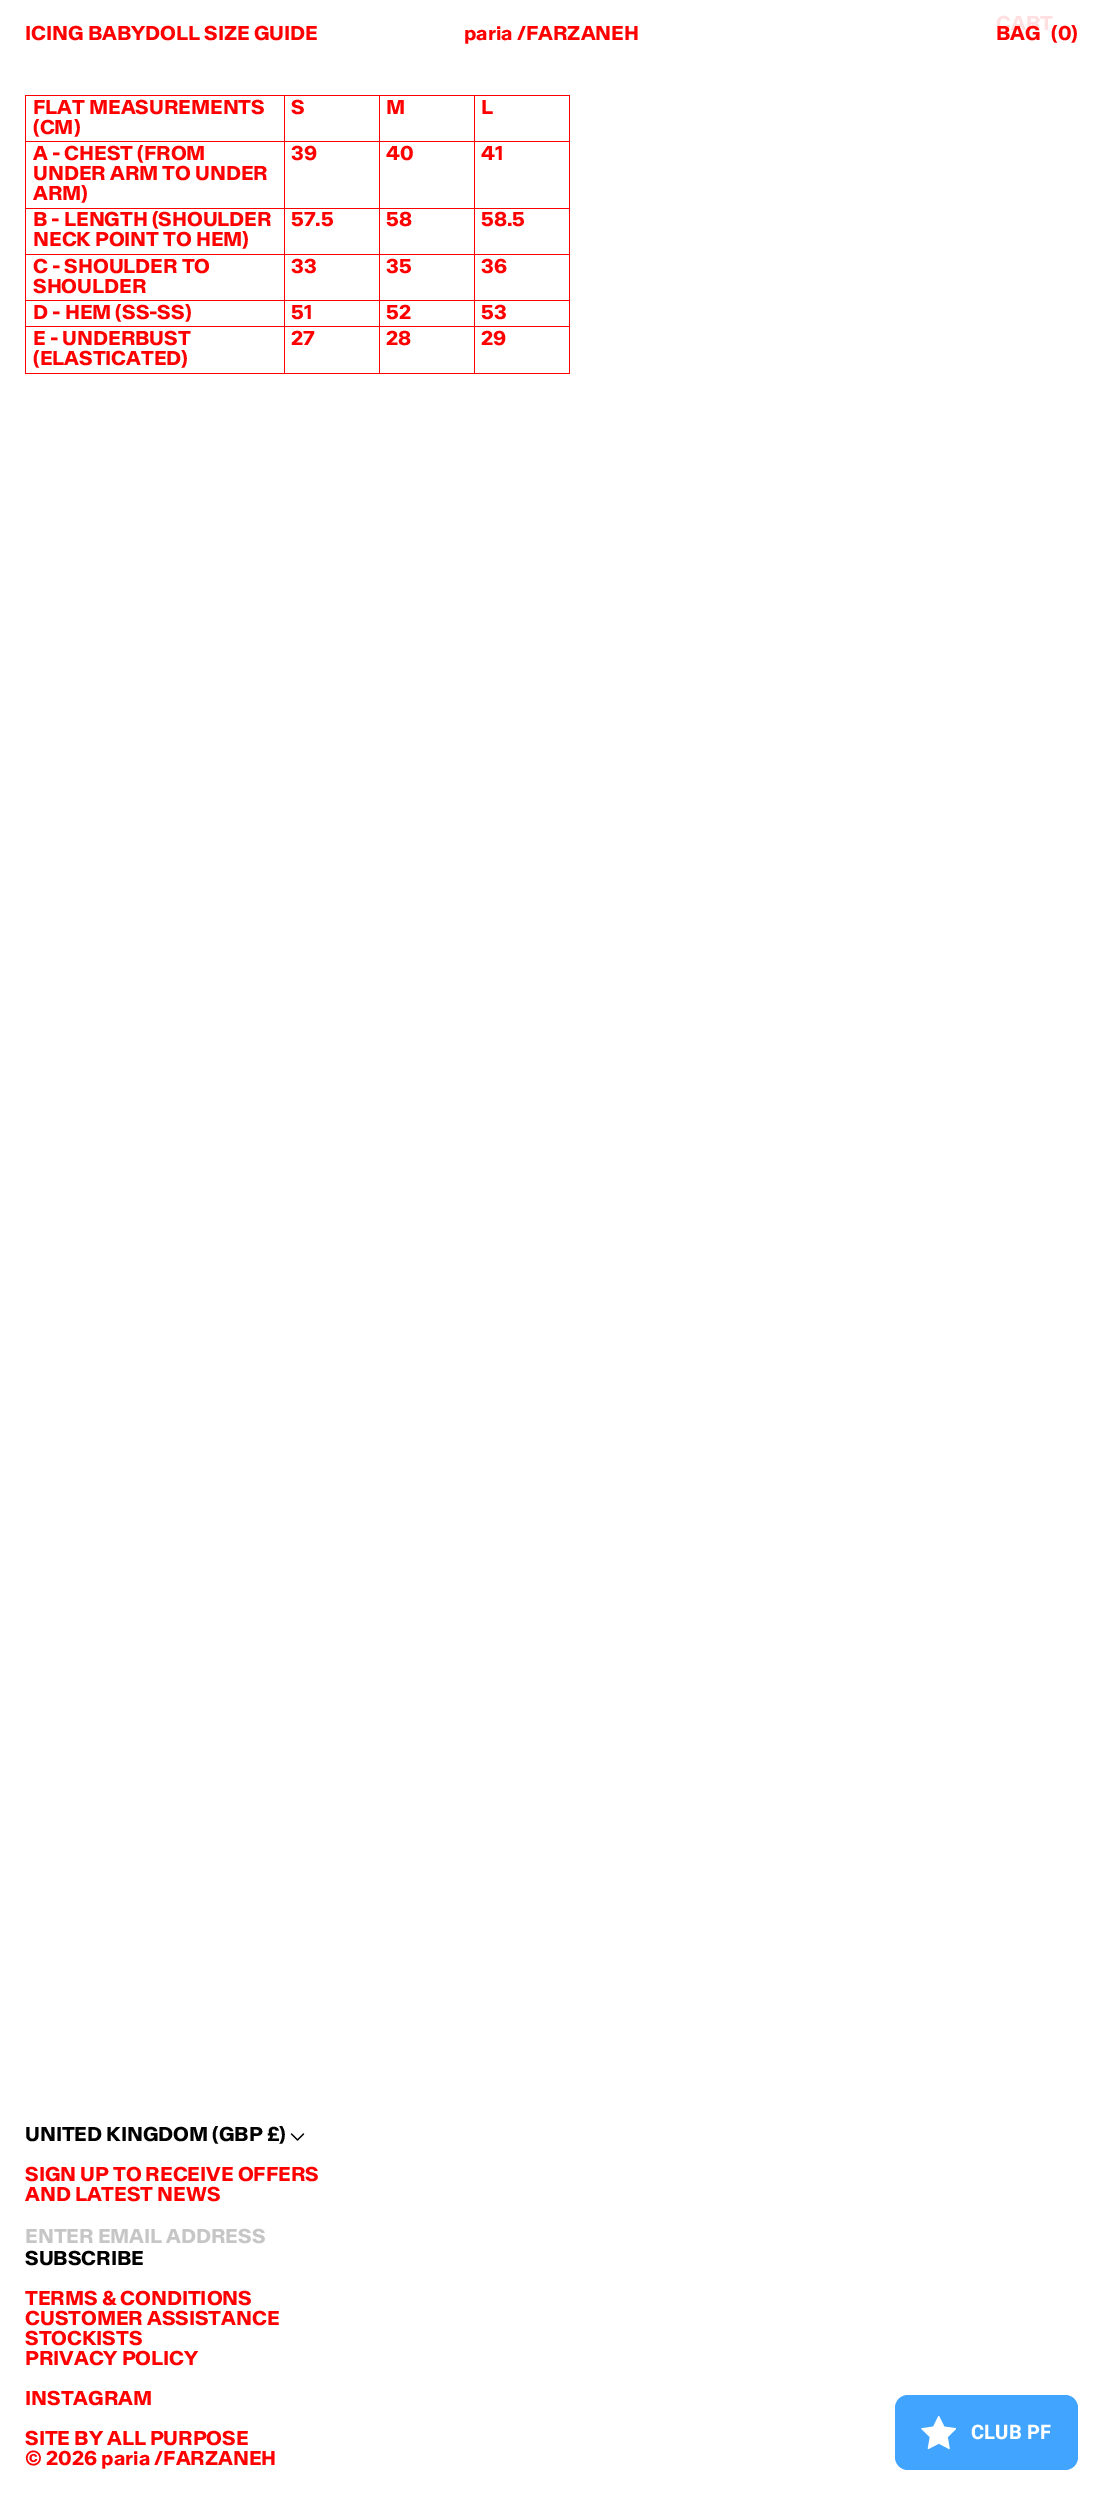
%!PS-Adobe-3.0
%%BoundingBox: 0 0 1102 2494
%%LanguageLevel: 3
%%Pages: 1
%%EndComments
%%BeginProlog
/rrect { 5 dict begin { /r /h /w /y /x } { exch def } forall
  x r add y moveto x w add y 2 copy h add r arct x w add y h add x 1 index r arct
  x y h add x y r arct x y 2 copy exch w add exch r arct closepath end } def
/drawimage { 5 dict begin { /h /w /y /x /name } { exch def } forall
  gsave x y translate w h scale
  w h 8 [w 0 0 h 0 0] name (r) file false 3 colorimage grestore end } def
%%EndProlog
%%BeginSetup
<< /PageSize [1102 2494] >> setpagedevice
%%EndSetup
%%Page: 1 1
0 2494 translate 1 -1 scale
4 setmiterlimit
1 setgray
0 0 1102 2494 rectfill
1 0 0 setrgbcolor
474 95 96 1 rectfill
474 141 96 1 rectfill
474 208 96 1 rectfill
474 254 96 1 rectfill
474 300 96 1 rectfill
474 326 96 1 rectfill
569 326 1 48 rectfill
474 373 96 1 rectfill
474 326 1 48 rectfill
379 326 96 1 rectfill
474 300 1 28 rectfill
379 300 96 1 rectfill
474 254 1 47 rectfill
379 254 96 1 rectfill
474 208 1 47 rectfill
379 208 96 1 rectfill
474 141 1 68 rectfill
379 141 96 1 rectfill
474 95 1 48 rectfill
379 95 96 1 rectfill
379 373 96 1 rectfill
379 326 1 48 rectfill
284 326 96 1 rectfill
379 300 1 28 rectfill
284 300 96 1 rectfill
379 254 1 47 rectfill
284 254 96 1 rectfill
379 208 1 47 rectfill
284 208 96 1 rectfill
379 141 1 68 rectfill
284 141 96 1 rectfill
379 95 1 48 rectfill
284 95 96 1 rectfill
284 373 96 1 rectfill
284 326 1 48 rectfill
25 326 260 1 rectfill
284 300 1 28 rectfill
25 300 260 1 rectfill
284 254 1 47 rectfill
25 254 260 1 rectfill
284 208 1 47 rectfill
25 208 260 1 rectfill
284 141 1 68 rectfill
25 141 260 1 rectfill
284 95 1 48 rectfill
25 95 260 1 rectfill
25 373 260 1 rectfill
25 326 1 48 rectfill
25 300 1 28 rectfill
25 254 1 47 rectfill
25 208 1 47 rectfill
25 141 1 68 rectfill
25 95 1 48 rectfill
569 300 1 28 rectfill
569 254 1 47 rectfill
569 208 1 47 rectfill
569 141 1 68 rectfill
569 95 1 48 rectfill
(images/1.raw) 290 2133 15 8 drawimage
0.255 0.647 1 setrgbcolor
895 2395 183 75 13 rrect fill
(images/2.raw) 921 2415 35 35 drawimage
/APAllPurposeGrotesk-Black [20 0 0 -20 0 0] selectfont
1 0 0 setrgbcolor
25 40 moveto (ICING BABYDOLL SIZE GUIDE) show
33 114 moveto (FLAT MEASUREMENTS) show
33 134 moveto (\(CM\)) show
291 114 moveto (S) show
386 114 moveto (M) show
481 114 moveto (L) show
33 160 moveto (A - CHEST \(FROM) show
33 180 moveto (UNDER ARM TO UNDER) show
33 200 moveto (ARM\)) show
291 160 moveto (39) show
386 160 moveto (40) show
481 160 moveto (41) show
33 226 moveto (B - LENGTH \(SHOULDER) show
33 246 moveto (NECK POINT TO HEM\)) show
291 226 moveto (57.5) show
386 226 moveto (58) show
481 226 moveto (58.5) show
33 273 moveto (C - SHOULDER TO) show
33 293 moveto (SHOULDER) show
291 273 moveto (33) show
386 273 moveto (35) show
481 273 moveto (36) show
33 319 moveto (D - HEM \(SS-SS\)) show
291 319 moveto (51) show
386 319 moveto (52) show
481 319 moveto (53) show
33 345 moveto (E - UNDERBUST) show
33 365 moveto (\(ELASTICATED\)) show
291 345 moveto (27) show
386 345 moveto (28) show
481 345 moveto (29) show
0 setgray
25 2141 moveto (UNITED KINGDOM \(GBP £\)) show
1 0 0 setrgbcolor
25 2181 moveto (SIGN UP TO RECEIVE OFFERS) show
25 2201 moveto (AND LATEST NEWS) show
0.776 setgray
25 2243 moveto (ENTER EMAIL ADDRESS) show
0 setgray
25 2265 moveto (SUBSCRIBE) show
1 0 0 setrgbcolor
25 2305 moveto (TERMS & CONDITIONS) show
25 2325 moveto (CUSTOMER ASSISTANCE) show
25 2345 moveto (STOCKISTS) show
25 2365 moveto (PRIVACY POLICY) show
25 2405 moveto (INSTAGRAM) show
25 2445 moveto (SITE BY ALL PURPOSE) show
25 2465 moveto (© 2026 paria /FARZANEH) show
464 40 moveto (paria /FARZANEH) show
1 0.875 0.875 setrgbcolor
996 30 moveto (CART) show
1 0 0 setrgbcolor
996 40 moveto (BAG) show
1051 40 moveto (\(0\)) show
/Roboto-ExtraBold [20 0 0 -20 0 0] selectfont
1 setgray
971 2439 moveto 0.25 0 (CLUB PF) ashow
showpage
%%EOF
